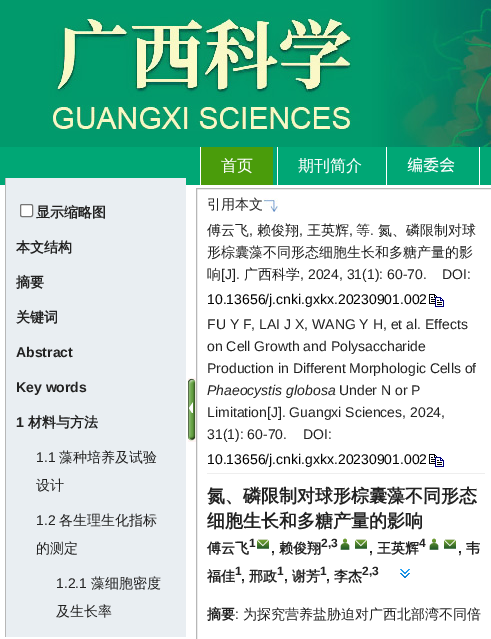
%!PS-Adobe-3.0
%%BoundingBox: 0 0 491 639
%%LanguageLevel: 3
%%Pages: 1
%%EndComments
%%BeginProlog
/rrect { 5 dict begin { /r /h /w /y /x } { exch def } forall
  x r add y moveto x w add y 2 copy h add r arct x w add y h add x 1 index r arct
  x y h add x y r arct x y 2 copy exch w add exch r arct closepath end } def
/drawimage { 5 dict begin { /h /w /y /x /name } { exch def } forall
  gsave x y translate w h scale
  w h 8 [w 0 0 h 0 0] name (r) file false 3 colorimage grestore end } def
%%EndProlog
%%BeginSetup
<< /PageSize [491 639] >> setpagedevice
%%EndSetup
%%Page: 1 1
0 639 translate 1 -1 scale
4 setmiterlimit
1 setgray
0 0 491 639 rectfill
(images/1.raw) 0 0 491 185 drawimage
0.914 0.933 0.949 setrgbcolor
6 178 180 459 rectfill
0.718 setgray
5 178 1 459 rectfill
1 setgray
20.5 204.5 12 12 1.5 rrect gsave fill grestore
0.463 setgray
stroke
(images/2.raw) 188 378 8 64 drawimage
0.718 setgray
196.5 188.5 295 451 rectstroke
(images/3.raw) 263 198 15 14 drawimage
(images/4.raw) 429 294 15 13 drawimage
(images/4.raw) 429 454 15 13 drawimage
0.933 setgray
207 473 278 1 rectfill
(images/5.raw) 257 539 12 10 drawimage
(images/6.raw) 340 538 10 12 drawimage
(images/5.raw) 355 539 12 10 drawimage
(images/6.raw) 429 538 10 12 drawimage
(images/5.raw) 444 539 12 10 drawimage
(images/7.raw) 400 569 10 9 drawimage
/WenQuanYiZenHei-Bold [14 0 0 -14 0 0] selectfont
0.133 setgray
36 217 moveto (显示缩略图) show
16 252 moveto (本文结构) show
16 287 moveto (摘要) show
16 322 moveto (关键词) show
/LiberationSans-Bold [14 0 0 -14 0 0] selectfont
16 357 moveto (Abstract) show
16 392 moveto (Key words) show
16 427 moveto (1) show
/WenQuanYiZenHei-Bold [14 0 0 -14 0 0] selectfont
28 427 moveto (材料与方法) show
/LiberationSans-Regular [14 0 0 -14 0 0] selectfont
36 462 moveto (1.1) show
/WenQuanYiZenHei-Medium [14 0 0 -14 0 0] selectfont
59 462 moveto (藻种培养及试验) show
36 490 moveto (设计) show
/LiberationSans-Regular [14 0 0 -14 0 0] selectfont
36 525 moveto (1.2) show
/WenQuanYiZenHei-Medium [14 0 0 -14 0 0] selectfont
59 525 moveto (各生理生化指标) show
36 553 moveto (的测定) show
/LiberationSans-Regular [14 0 0 -14 0 0] selectfont
56 588 moveto (1.2.1) show
/WenQuanYiZenHei-Medium [14 0 0 -14 0 0] selectfont
91 588 moveto (藻细胞密度) show
56 616 moveto (及生长率) show
207 209 moveto (引用本文) show
207 235 moveto (傅云飞) show
/LiberationSans-Regular [14 0 0 -14 0 0] selectfont
249 235 moveto (,) show
/WenQuanYiZenHei-Medium [14 0 0 -14 0 0] selectfont
257 235 moveto (赖俊翔) show
/LiberationSans-Regular [14 0 0 -14 0 0] selectfont
299 235 moveto (,) show
/WenQuanYiZenHei-Medium [14 0 0 -14 0 0] selectfont
307 235 moveto (王英辉) show
/LiberationSans-Regular [14 0 0 -14 0 0] selectfont
349 235 moveto (,) show
/WenQuanYiZenHei-Medium [14 0 0 -14 0 0] selectfont
356 235 moveto (等) show
/LiberationSans-Regular [14 0 0 -14 0 0] selectfont
370 235 moveto (.) show
/WenQuanYiZenHei-Medium [14 0 0 -14 0 0] selectfont
378 235 moveto (氮、磷限制对球) show
207 257 moveto (形棕囊藻不同形态细胞生长和多糖产量的影) show
207 279 moveto (响) show
/LiberationSans-Regular [14 0 0 -14 0 0] selectfont
221 279 moveto ([J].) show
/WenQuanYiZenHei-Medium [14 0 0 -14 0 0] selectfont
244 279 moveto (广西科学) show
/LiberationSans-Regular [14 0 0 -14 0 0] selectfont
300 279 moveto (, 2024, 31\(1\): 60-70.    DOI:) show
0 setgray
207 304 moveto (10.13656/j.cnki.gxkx.20230901.002) show
0.133 setgray
207 329 moveto (FU Y F, LAI J X, WANG Y H, et al. Effects) show
207 351 moveto (on Cell Growth and Polysaccharide) show
207 373 moveto (Production in Different Morphologic Cells of) show
/LiberationSans-Italic [14 0 0 -14 0 0] selectfont
207 395 moveto (Phaeocystis globosa) show
/LiberationSans-Regular [14 0 0 -14 0 0] selectfont
339 395 moveto (Under N or P) show
207 417 moveto (Limitation[J]. Guangxi Sciences, 2024,) show
207 439 moveto (31\(1\): 60-70.    DOI:) show
0 setgray
207 464 moveto (10.13656/j.cnki.gxkx.20230901.002) show
/WenQuanYiZenHei-Bold [18 0 0 -18 0 0] selectfont
0.133 setgray
207 502 moveto (氮、磷限制对球形棕囊藻不同形态) show
207 527 moveto (细胞生长和多糖产量的影响) show
/WenQuanYiZenHei-Bold [14 0 0 -14 0 0] selectfont
207 553 moveto (傅云飞) show
/LiberationSans-Bold [12 0 0 -12 0 0] selectfont
249 547 moveto (1) show
/LiberationSans-Bold [14 0 0 -14 0 0] selectfont
271 553 moveto (,) show
/WenQuanYiZenHei-Bold [14 0 0 -14 0 0] selectfont
279 553 moveto (赖俊翔) show
/LiberationSans-Bold [12 0 0 -12 0 0] selectfont
321 547 moveto (2,3) show
/LiberationSans-Bold [14 0 0 -14 0 0] selectfont
369 553 moveto (,) show
/WenQuanYiZenHei-Bold [14 0 0 -14 0 0] selectfont
377 553 moveto (王英辉) show
/LiberationSans-Bold [12 0 0 -12 0 0] selectfont
419 547 moveto (4) show
/LiberationSans-Bold [14 0 0 -14 0 0] selectfont
458 553 moveto (,) show
/WenQuanYiZenHei-Bold [14 0 0 -14 0 0] selectfont
466 553 moveto (韦) show
207 581 moveto (福佳) show
/LiberationSans-Bold [12 0 0 -12 0 0] selectfont
235 575 moveto (1) show
/LiberationSans-Bold [14 0 0 -14 0 0] selectfont
241 581 moveto (,) show
/WenQuanYiZenHei-Bold [14 0 0 -14 0 0] selectfont
249 581 moveto (邢政) show
/LiberationSans-Bold [12 0 0 -12 0 0] selectfont
277 575 moveto (1) show
/LiberationSans-Bold [14 0 0 -14 0 0] selectfont
284 581 moveto (,) show
/WenQuanYiZenHei-Bold [14 0 0 -14 0 0] selectfont
292 581 moveto (谢芳) show
/LiberationSans-Bold [12 0 0 -12 0 0] selectfont
320 575 moveto (1) show
/LiberationSans-Bold [14 0 0 -14 0 0] selectfont
326 581 moveto (,) show
/WenQuanYiZenHei-Bold [14 0 0 -14 0 0] selectfont
334 581 moveto (李杰) show
/LiberationSans-Bold [12 0 0 -12 0 0] selectfont
362 575 moveto (2,3) show
/WenQuanYiZenHei-Bold [14 0 0 -14 0 0] selectfont
207 619 moveto (摘要) show
/LiberationSans-Regular [14 0 0 -14 0 0] selectfont
235 619 moveto (:) show
/WenQuanYiZenHei-Medium [14 0 0 -14 0 0] selectfont
243 619 moveto (为探究营养盐胁迫对广西北部湾不同倍) show
showpage
%%EOF
